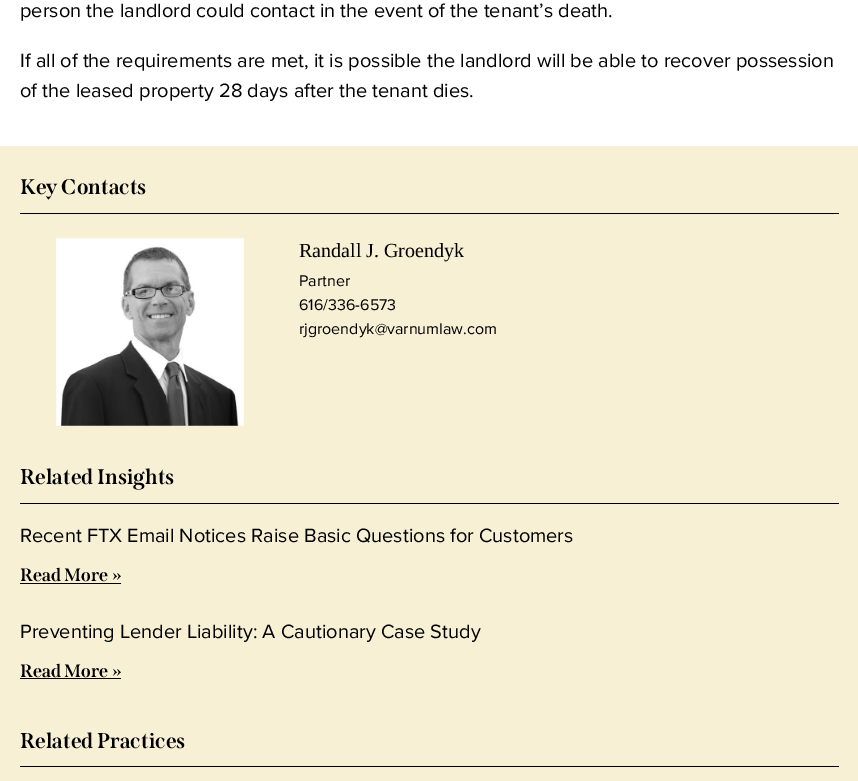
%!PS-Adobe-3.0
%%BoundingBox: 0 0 858 781
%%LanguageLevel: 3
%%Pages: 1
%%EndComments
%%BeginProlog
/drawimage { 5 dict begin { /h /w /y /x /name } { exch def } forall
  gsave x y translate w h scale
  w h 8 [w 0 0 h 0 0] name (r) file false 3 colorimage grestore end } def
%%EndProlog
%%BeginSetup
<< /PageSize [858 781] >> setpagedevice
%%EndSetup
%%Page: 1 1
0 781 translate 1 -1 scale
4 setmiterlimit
0.969 0.941 0.835 setrgbcolor
0 0 858 781 rectfill
1 setgray
0 0 858 146 rectfill
0 setgray
20 213 819 1 rectfill
(images/1.raw) 56 238 188 188 drawimage
20 503 819 1 rectfill
20 583 101 1 rectfill
20 678 101 1 rectfill
20 766 819 1 rectfill
/ProximaNova-Regular [20 0 0 -20 0 0] selectfont
20 17 moveto (person the landlord could contact in the event of the tenant’s death.) show
20 67 moveto (If all of the requirements are met, it is possible the landlord will be able to recover possession) show
20 97 moveto (of the leased property 28 days after the tenant dies.) show
/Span-Bold [21.25 0 0 -21.25 0 0] selectfont
20 194 moveto (Key Contacts) show
/LiberationSerif-Regular [20 0 0 -20 0 0] selectfont
299 257 moveto (Randall J. Groendyk) show
/ProximaNova-Regular [16 0 0 -16 0 0] selectfont
299 286 moveto (Partner) show
299 310 moveto (616/336-6573) show
299 334 moveto (rjgroendyk@varnumlaw.com) show
/Span-Bold [21.25 0 0 -21.25 0 0] selectfont
20 484 moveto (Related Insights) show
/ProximaNova-Regular [20 0 0 -20 0 0] selectfont
20 542 moveto (Recent FTX Email Notices Raise Basic Questions for Customers) show
/Span-Bold [18 0 0 -18 0 0] selectfont
20 581 moveto (Read More ») show
/ProximaNova-Regular [20 0 0 -20 0 0] selectfont
20 638 moveto (Preventing Lender Liability: A Cautionary Case Study) show
/Span-Bold [18 0 0 -18 0 0] selectfont
20 677 moveto (Read More ») show
/Span-Bold [21.25 0 0 -21.25 0 0] selectfont
20 748 moveto (Related Practices) show
showpage
%%EOF
